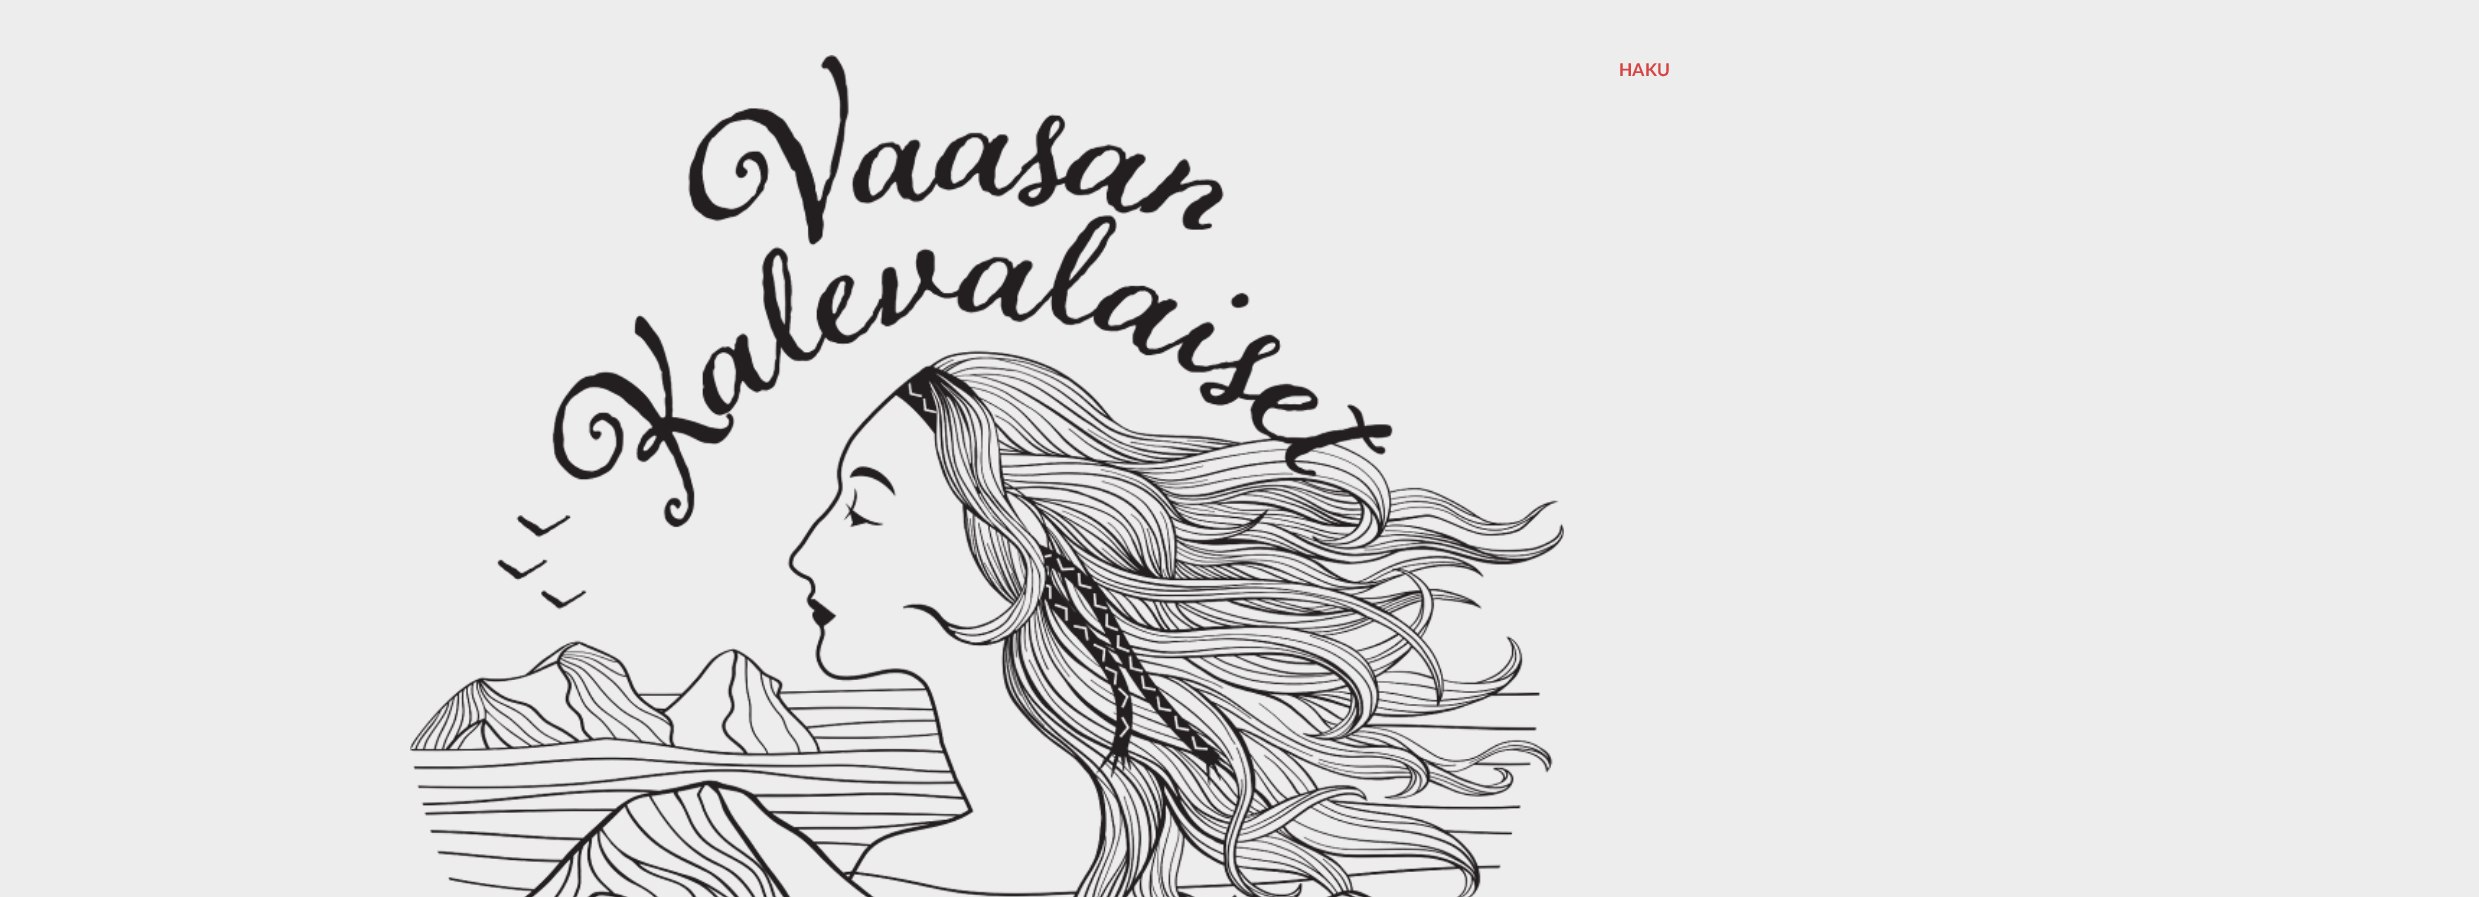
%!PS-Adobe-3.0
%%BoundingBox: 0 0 2479 897
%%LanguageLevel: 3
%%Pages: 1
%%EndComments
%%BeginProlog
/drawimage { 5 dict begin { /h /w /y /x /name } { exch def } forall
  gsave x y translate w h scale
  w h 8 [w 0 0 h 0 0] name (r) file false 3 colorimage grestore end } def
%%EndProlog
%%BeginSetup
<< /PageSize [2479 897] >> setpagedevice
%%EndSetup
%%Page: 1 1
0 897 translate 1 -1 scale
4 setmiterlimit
0.929 setgray
0 0 2479 897 rectfill
(images/1.raw) 410 55 1154 842 drawimage
/Lato-Bold [17.5 0 0 -17.5 0 0] selectfont
0.843 0.267 0.267 setrgbcolor
1619 76 moveto (HAKU) show
showpage
%%EOF
